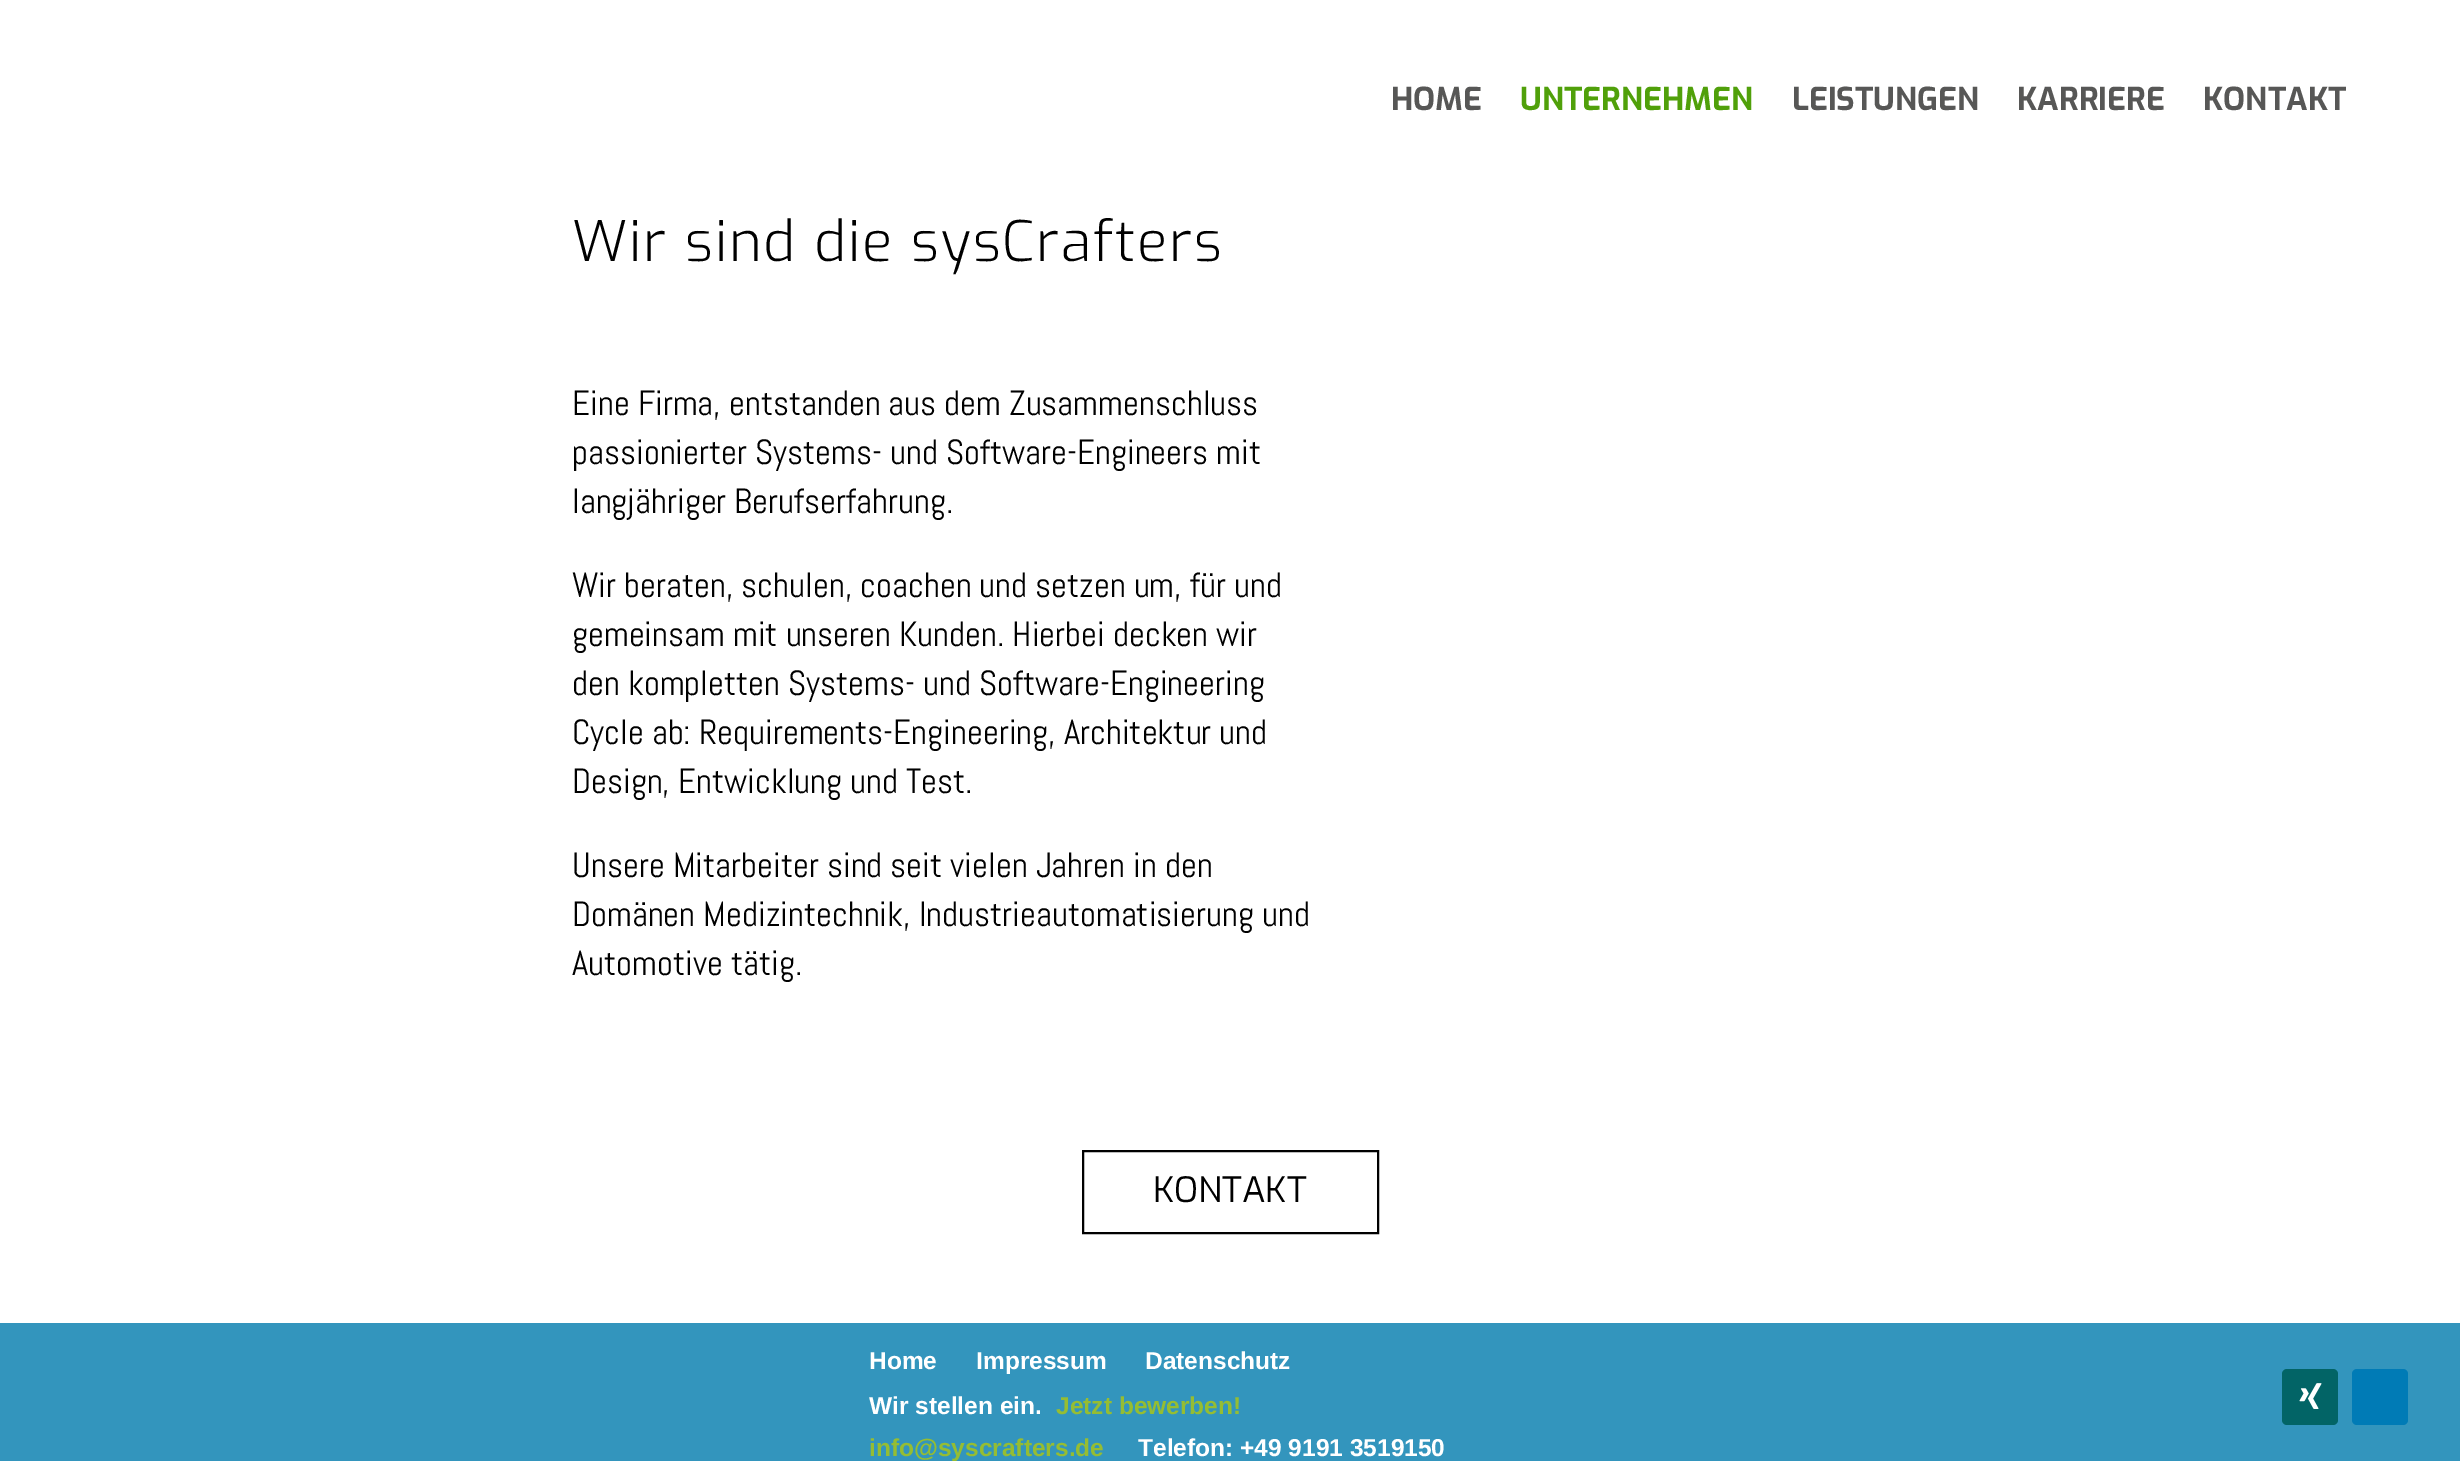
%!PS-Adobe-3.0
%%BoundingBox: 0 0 2460 1461
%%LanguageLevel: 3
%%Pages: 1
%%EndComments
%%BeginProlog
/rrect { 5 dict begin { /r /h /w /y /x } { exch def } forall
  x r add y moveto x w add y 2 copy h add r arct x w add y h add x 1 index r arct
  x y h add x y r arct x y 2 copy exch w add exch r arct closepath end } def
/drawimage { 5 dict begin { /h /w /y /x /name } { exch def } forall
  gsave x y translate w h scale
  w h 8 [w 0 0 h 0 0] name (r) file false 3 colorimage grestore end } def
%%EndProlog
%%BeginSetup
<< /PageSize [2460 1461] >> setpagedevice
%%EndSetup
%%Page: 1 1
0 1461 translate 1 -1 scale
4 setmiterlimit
1 setgray
0 0 2460 1461 rectfill
0 setgray
2 setlinewidth
1083 1151 295 82 rectstroke
0.2 0.584 0.741 setrgbcolor
0 1323 2460 138 rectfill
0.008 0.392 0.4 setrgbcolor
2282 1369 56 56 5 rrect fill
(images/1.raw) 2299 1383 23 26 drawimage
0 0.482 0.714 setrgbcolor
2352 1369 56 56 5 rrect fill
/Exo-Bold [31.5 0 0 -31.5 0 0] selectfont
0.341 0.341 0.337 setrgbcolor
1391 110 moveto (HOME) show
0.314 0.627 0.039 setrgbcolor
1520 110 moveto (UNTERNEHMEN) show
0.341 0.341 0.337 setrgbcolor
1792 110 moveto (LEISTUNGEN) show
2017 110 moveto (KARRIERE) show
2203 110 moveto (KONTAKT) show
/Exo-Light [56 0 0 -56 0 0] selectfont
0 setgray
572 261 moveto 1.75 0 (Wir sind die sysCrafters) ashow
/Abel-Regular [35 0 0 -35 0 0] selectfont
572 415 moveto (Eine Firma, entstanden aus dem Zusammenschluss) show
572 464 moveto (passionierter Systems- und Software-Engineers mit) show
572 513 moveto (langjähriger Berufserfahrung.) show
572 597 moveto (Wir beraten, schulen, coachen und setzen um, für und) show
572 646 moveto (gemeinsam mit unseren Kunden. Hierbei decken wir) show
572 695 moveto (den kompletten Systems- und Software-Engineering) show
572 744 moveto (Cycle ab: Requirements-Engineering, Architektur und) show
572 793 moveto (Design, Entwicklung und Test.) show
572 877 moveto (Unsere Mitarbeiter sind seit vielen Jahren in den) show
572 926 moveto (Domänen Medizintechnik, Industrieautomatisierung und) show
572 975 moveto (Automotive tätig.) show
/Exo-Regular [35 0 0 -35 0 0] selectfont
1153 1202 moveto (KONTAKT) show
/LiberationSans-Bold [24.5 0 0 -24.5 0 0] selectfont
1 setgray
869 1369 moveto (Home) show
976 1369 moveto (Impressum) show
1145 1369 moveto (Datenschutz) show
869 1414 moveto (Wir stellen ein.) show
0.584 0.741 0.2 setrgbcolor
1056 1414 moveto (Jetzt bewerben!) show
869 1456 moveto (info@syscrafters.de) show
1 setgray
1138 1456 moveto (Telefon: +49 9191 3519150) show
showpage
%%EOF
